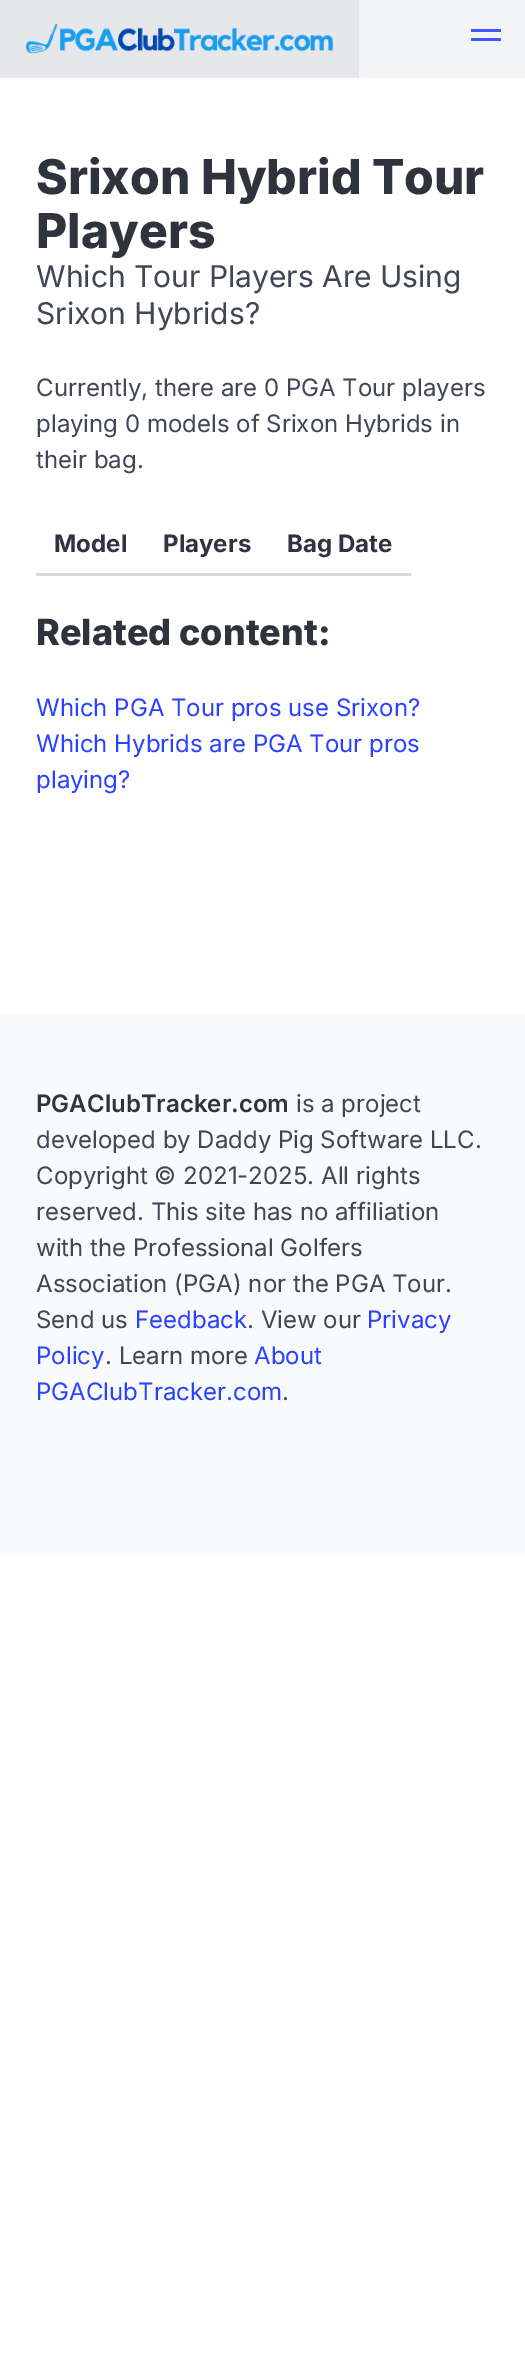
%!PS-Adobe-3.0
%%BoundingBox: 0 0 525 2378
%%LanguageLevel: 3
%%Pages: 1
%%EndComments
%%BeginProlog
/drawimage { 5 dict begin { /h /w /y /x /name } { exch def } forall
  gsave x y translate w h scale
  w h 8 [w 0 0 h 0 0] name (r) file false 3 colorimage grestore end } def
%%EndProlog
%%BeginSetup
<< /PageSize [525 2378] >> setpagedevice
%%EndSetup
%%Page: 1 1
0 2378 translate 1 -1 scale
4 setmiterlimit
1 setgray
0 0 525 2378 rectfill
0.953 0.957 0.965 setrgbcolor
359 0 166 78 rectfill
0.898 0.906 0.922 setrgbcolor
0 0 359 78 rectfill
(images/1.raw) 26 23 308 31 drawimage
0.259 0.345 1 setrgbcolor
471 29 30 3 rectfill
471 38 30 3 rectfill
0.839 0.851 0.878 setrgbcolor
36 573 375 3 rectfill
0.976 0.98 0.984 setrgbcolor
0 1013 525 540 rectfill
/Inter-ExtraBold [48 0 0 -48 0 0] selectfont
0.18 0.2 0.239 setrgbcolor
36 194 moveto (Srixon Hybrid Tour) show
36 248 moveto (Players) show
/Inter-Regular [30 0 0 -30 0 0] selectfont
0.251 0.275 0.329 setrgbcolor
36 287 moveto (Which Tour Players Are Using) show
36 324 moveto (Srixon Hybrids?) show
/Inter-Regular [24 0 0 -24 0 0] selectfont
36 396 moveto (Currently, there are 0 PGA Tour players) show
36 432 moveto (playing 0 models of Srixon Hybrids in) show
36 468 moveto (their bag.) show
/Inter-Bold [24 0 0 -24 0 0] selectfont
0.18 0.2 0.239 setrgbcolor
54 552 moveto (Model) show
163 552 moveto (Players) show
287 552 moveto (Bag Date) show
/Inter-ExtraBold [36 0 0 -36 0 0] selectfont
36 645 moveto (Related content:) show
/Inter-Regular [24 0 0 -24 0 0] selectfont
0.161 0.259 1 setrgbcolor
36 716 moveto (Which PGA Tour pros use Srixon?) show
36 752 moveto (Which Hybrids are PGA Tour pros) show
36 788 moveto (playing?) show
/Inter-SemiBold [24 0 0 -24 0 0] selectfont
0.18 0.2 0.239 setrgbcolor
36 1112 moveto (PGAClubTracker.com) show
/Inter-Regular [24 0 0 -24 0 0] selectfont
0.251 0.275 0.329 setrgbcolor
296 1112 moveto (is a project) show
36 1148 moveto (developed by Daddy Pig Software LLC.) show
36 1184 moveto (Copyright © 2021-2025. All rights) show
36 1220 moveto (reserved. This site has no affiliation) show
36 1256 moveto (with the Professional Golfers) show
36 1292 moveto (Association \(PGA\) nor the PGA Tour.) show
36 1328 moveto (Send us) show
0.161 0.259 1 setrgbcolor
135 1328 moveto (Feedback) show
0.251 0.275 0.329 setrgbcolor
247 1328 moveto (. View our) show
0.161 0.259 1 setrgbcolor
367 1328 moveto (Privacy) show
36 1364 moveto (Policy) show
0.251 0.275 0.329 setrgbcolor
105 1364 moveto (. Learn more) show
0.161 0.259 1 setrgbcolor
254 1364 moveto (About) show
36 1400 moveto (PGAClubTracker.com) show
0.251 0.275 0.329 setrgbcolor
282 1400 moveto (.) show
showpage
%%EOF
